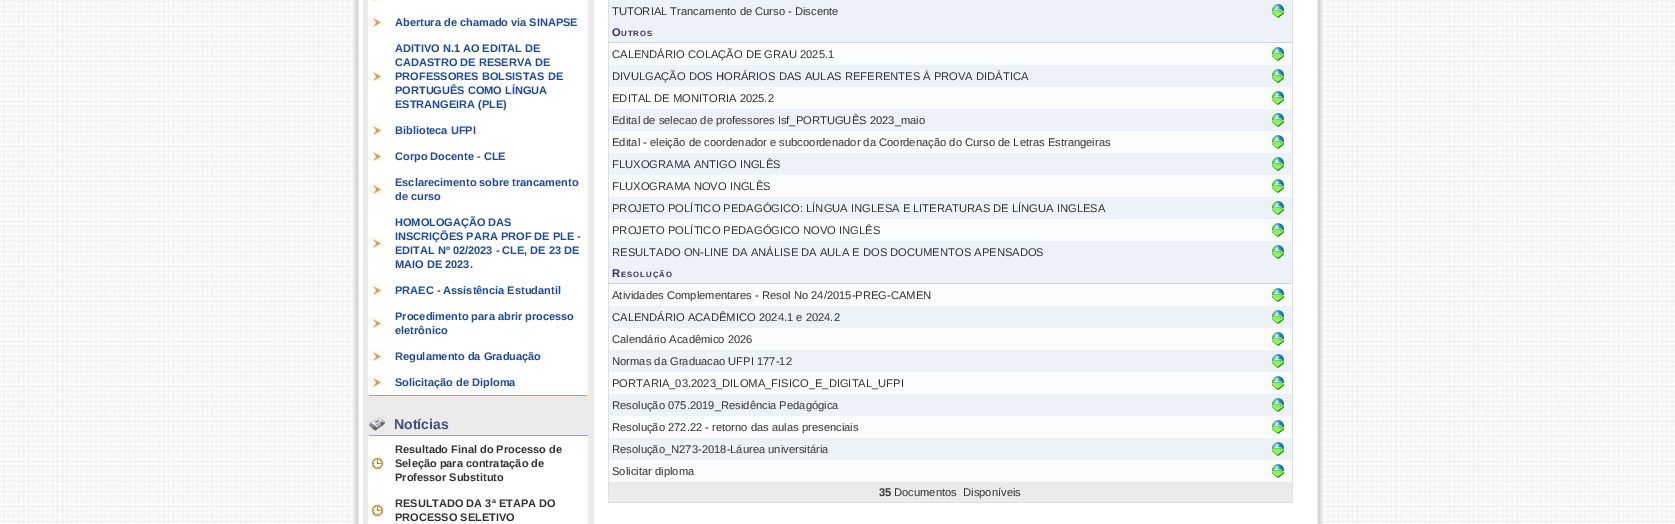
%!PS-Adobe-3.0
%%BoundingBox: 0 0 1675 524
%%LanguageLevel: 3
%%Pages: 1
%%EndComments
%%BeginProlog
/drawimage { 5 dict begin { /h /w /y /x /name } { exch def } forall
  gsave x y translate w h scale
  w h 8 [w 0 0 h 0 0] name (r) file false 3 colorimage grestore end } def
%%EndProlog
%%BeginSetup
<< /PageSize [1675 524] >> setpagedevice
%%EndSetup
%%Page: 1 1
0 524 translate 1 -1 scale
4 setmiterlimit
1 setgray
0 0 1675 524 rectfill
(images/1.raw) 0 0 1675 524 drawimage
0.922 setgray
363 0 231 524 rectfill
1 setgray
368 0 220 395 rectfill
(images/2.raw) 370 0 12 2 drawimage
(images/3.raw) 370 16 12 12 drawimage
(images/3.raw) 370 70 12 12 drawimage
(images/3.raw) 370 124 12 12 drawimage
(images/3.raw) 370 150 12 12 drawimage
(images/3.raw) 370 183 12 12 drawimage
(images/3.raw) 370 237 12 12 drawimage
(images/3.raw) 370 284 12 12 drawimage
(images/3.raw) 370 317 12 12 drawimage
(images/3.raw) 370 350 12 12 drawimage
(images/3.raw) 370 376 12 12 drawimage
0.851 0.612 0.267 setrgbcolor
368 395 220 1 rectfill
0.922 setgray
587 395 1 2 rectfill
368 395 1 2 rectfill
(images/4.raw) 369 416 16 16 drawimage
0.851 0.612 0.267 setrgbcolor
368 435 220 1 rectfill
0.922 setgray
368 435 1 1 rectfill
1 setgray
368 436 220 88 rectfill
(images/5.raw) 370 456 14 14 drawimage
(images/5.raw) 370 503 14 14 drawimage
0.871 0.875 0.89 setrgbcolor
1292 0 1 503 rectfill
608 502 685 1 rectfill
608 0 1 503 rectfill
0.929 0.945 0.973 setrgbcolor
609 0 683 42 rectfill
(images/6.raw) 1272 4 12 14 drawimage
0.784 0.835 0.925 setrgbcolor
608 42 685 1 rectfill
0.976 0.984 0.992 setrgbcolor
609 43 683 22 rectfill
(images/7.raw) 1272 47 12 14 drawimage
0.929 0.945 0.973 setrgbcolor
609 65 683 22 rectfill
(images/6.raw) 1272 69 12 14 drawimage
0.976 0.984 0.992 setrgbcolor
609 87 683 22 rectfill
(images/7.raw) 1272 91 12 14 drawimage
0.929 0.945 0.973 setrgbcolor
609 109 683 22 rectfill
(images/6.raw) 1272 113 12 14 drawimage
0.976 0.984 0.992 setrgbcolor
609 131 683 22 rectfill
(images/7.raw) 1272 135 12 14 drawimage
0.929 0.945 0.973 setrgbcolor
609 153 683 22 rectfill
(images/6.raw) 1272 157 12 14 drawimage
0.976 0.984 0.992 setrgbcolor
609 175 683 22 rectfill
(images/7.raw) 1272 179 12 14 drawimage
0.929 0.945 0.973 setrgbcolor
609 197 683 22 rectfill
(images/6.raw) 1272 201 12 14 drawimage
0.976 0.984 0.992 setrgbcolor
609 219 683 22 rectfill
(images/7.raw) 1272 223 12 14 drawimage
0.929 0.945 0.973 setrgbcolor
609 241 683 42 rectfill
(images/6.raw) 1272 245 12 14 drawimage
0.784 0.835 0.925 setrgbcolor
608 283 685 1 rectfill
0.976 0.984 0.992 setrgbcolor
609 284 683 22 rectfill
(images/7.raw) 1272 288 12 14 drawimage
0.929 0.945 0.973 setrgbcolor
609 306 683 22 rectfill
(images/6.raw) 1272 310 12 14 drawimage
0.976 0.984 0.992 setrgbcolor
609 328 683 22 rectfill
(images/7.raw) 1272 332 12 14 drawimage
0.929 0.945 0.973 setrgbcolor
609 350 683 22 rectfill
(images/6.raw) 1272 354 12 14 drawimage
0.976 0.984 0.992 setrgbcolor
609 372 683 22 rectfill
(images/7.raw) 1272 376 12 14 drawimage
0.929 0.945 0.973 setrgbcolor
609 394 683 22 rectfill
(images/6.raw) 1272 398 12 14 drawimage
0.976 0.984 0.992 setrgbcolor
609 416 683 22 rectfill
(images/7.raw) 1272 420 12 14 drawimage
0.929 0.945 0.973 setrgbcolor
609 438 683 22 rectfill
(images/6.raw) 1272 442 12 14 drawimage
0.976 0.984 0.992 setrgbcolor
609 460 683 22 rectfill
(images/7.raw) 1272 464 12 14 drawimage
0.922 setgray
609 482 683 20 rectfill
/LiberationSans-Bold [11 0 0 -11 0 0] selectfont
0.118 0.286 0.612 setrgbcolor
395 26 moveto (Abertura de chamado via SINAPSE) show
395 52 moveto (ADITIVO N.1 AO EDITAL DE) show
395 66 moveto (CADASTRO DE RESERVA DE) show
395 80 moveto (PROFESSORES BOLSISTAS DE) show
395 94 moveto (PORTUGUÊS COMO LÍNGUA) show
395 108 moveto (ESTRANGEIRA \(PLE\)) show
395 134 moveto (Biblioteca UFPI) show
395 160 moveto (Corpo Docente - CLE) show
395 186 moveto (Esclarecimento sobre trancamento) show
395 200 moveto (de curso) show
395 226 moveto (HOMOLOGAÇÃO DAS) show
395 240 moveto (INSCRIÇÕES PARA PROF DE PLE -) show
395 254 moveto (EDITAL Nº 02/2023 - CLE, DE 23 DE) show
395 268 moveto (MAIO DE 2023.) show
395 294 moveto (PRAEC - Assistência Estudantil) show
395 320 moveto (Procedimento para abrir processo) show
395 334 moveto (eletrônico) show
395 360 moveto (Regulamento da Graduação) show
395 386 moveto (Solicitação de Diploma) show
/LiberationSans-Bold [14 0 0 -14 0 0] selectfont
0.251 0.306 0.51 setrgbcolor
394 429 moveto (Notícias) show
/LiberationSans-Bold [11 0 0 -11 0 0] selectfont
0.2 setgray
395 453 moveto (Resultado Final do Processo de) show
395 467 moveto (Seleção para contratação de) show
395 481 moveto (Professor Substituto) show
395 507 moveto (RESULTADO DA 3ª ETAPA DO) show
395 521 moveto (PROCESSO SELETIVO) show
/LiberationSans-Regular [11.2 0 0 -11.2 0 0] selectfont
612 15 moveto (TUTORIAL Trancamento de Curso - Discente) show
/LiberationSans-Bold [11.2 0 0 -11.2 0 0] selectfont
0.2 0.2 0.4 setrgbcolor
612 36 moveto 1 0 (O) ashow
/LiberationSans-Bold [7.75 0 0 -7.75 0 0] selectfont
621 36 moveto 1 0 (UTROS) ashow
/LiberationSans-Regular [11.2 0 0 -11.2 0 0] selectfont
0.2 setgray
612 58 moveto (CALENDÁRIO COLAÇÃO DE GRAU 2025.1) show
612 80 moveto (DIVULGAÇÃO DOS HORÁRIOS DAS AULAS REFERENTES À PROVA DIDÁTICA) show
612 102 moveto (EDITAL DE MONITORIA 2025.2) show
612 124 moveto (Edital de selecao de professores Isf_PORTUGUÊS 2023_maio) show
612 146 moveto (Edital - eleição de coordenador e subcoordenador da Coordenação do Curso de Letras Estrangeiras) show
612 168 moveto (FLUXOGRAMA ANTIGO INGLÊS) show
612 190 moveto (FLUXOGRAMA NOVO INGLÊS) show
612 212 moveto (PROJETO POLÍTICO PEDAGÓGICO: LÍNGUA INGLESA E LITERATURAS DE LÍNGUA INGLESA) show
612 234 moveto (PROJETO POLÍTICO PEDAGÓGICO NOVO INGLÊS) show
612 256 moveto (RESULTADO ON-LINE DA ANÁLISE DA AULA E DOS DOCUMENTOS APENSADOS) show
/LiberationSans-Bold [11.2 0 0 -11.2 0 0] selectfont
0.2 0.2 0.4 setrgbcolor
612 277 moveto 1 0 (R) ashow
/LiberationSans-Bold [7.75 0 0 -7.75 0 0] selectfont
621 277 moveto 1 0 (ESOLUÇÃO) ashow
/LiberationSans-Regular [11.2 0 0 -11.2 0 0] selectfont
0.2 setgray
612 299 moveto (Atividades Complementares - Resol No 24/2015-PREG-CAMEN) show
612 321 moveto (CALENDÁRIO ACADÊMICO 2024.1 e 2024.2) show
612 343 moveto (Calendário Acadêmico 2026) show
612 365 moveto (Normas da Graduacao UFPI 177-12) show
612 387 moveto (PORTARIA_03.2023_DILOMA_FISICO_E_DIGITAL_UFPI) show
612 409 moveto (Resolução 075.2019_Residência Pedagógica) show
612 431 moveto (Resolução 272.22 - retorno das aulas presenciais) show
612 453 moveto (Resolução_N273-2018-Láurea universitária) show
612 475 moveto (Solicitar diploma) show
/LiberationSans-Bold [11.2 0 0 -11.2 0 0] selectfont
879 496 moveto (35) show
/LiberationSans-Regular [11.2 0 0 -11.2 0 0] selectfont
894 496 moveto (Documentos) show
963 496 moveto (Disponíveis) show
showpage
%%EOF
